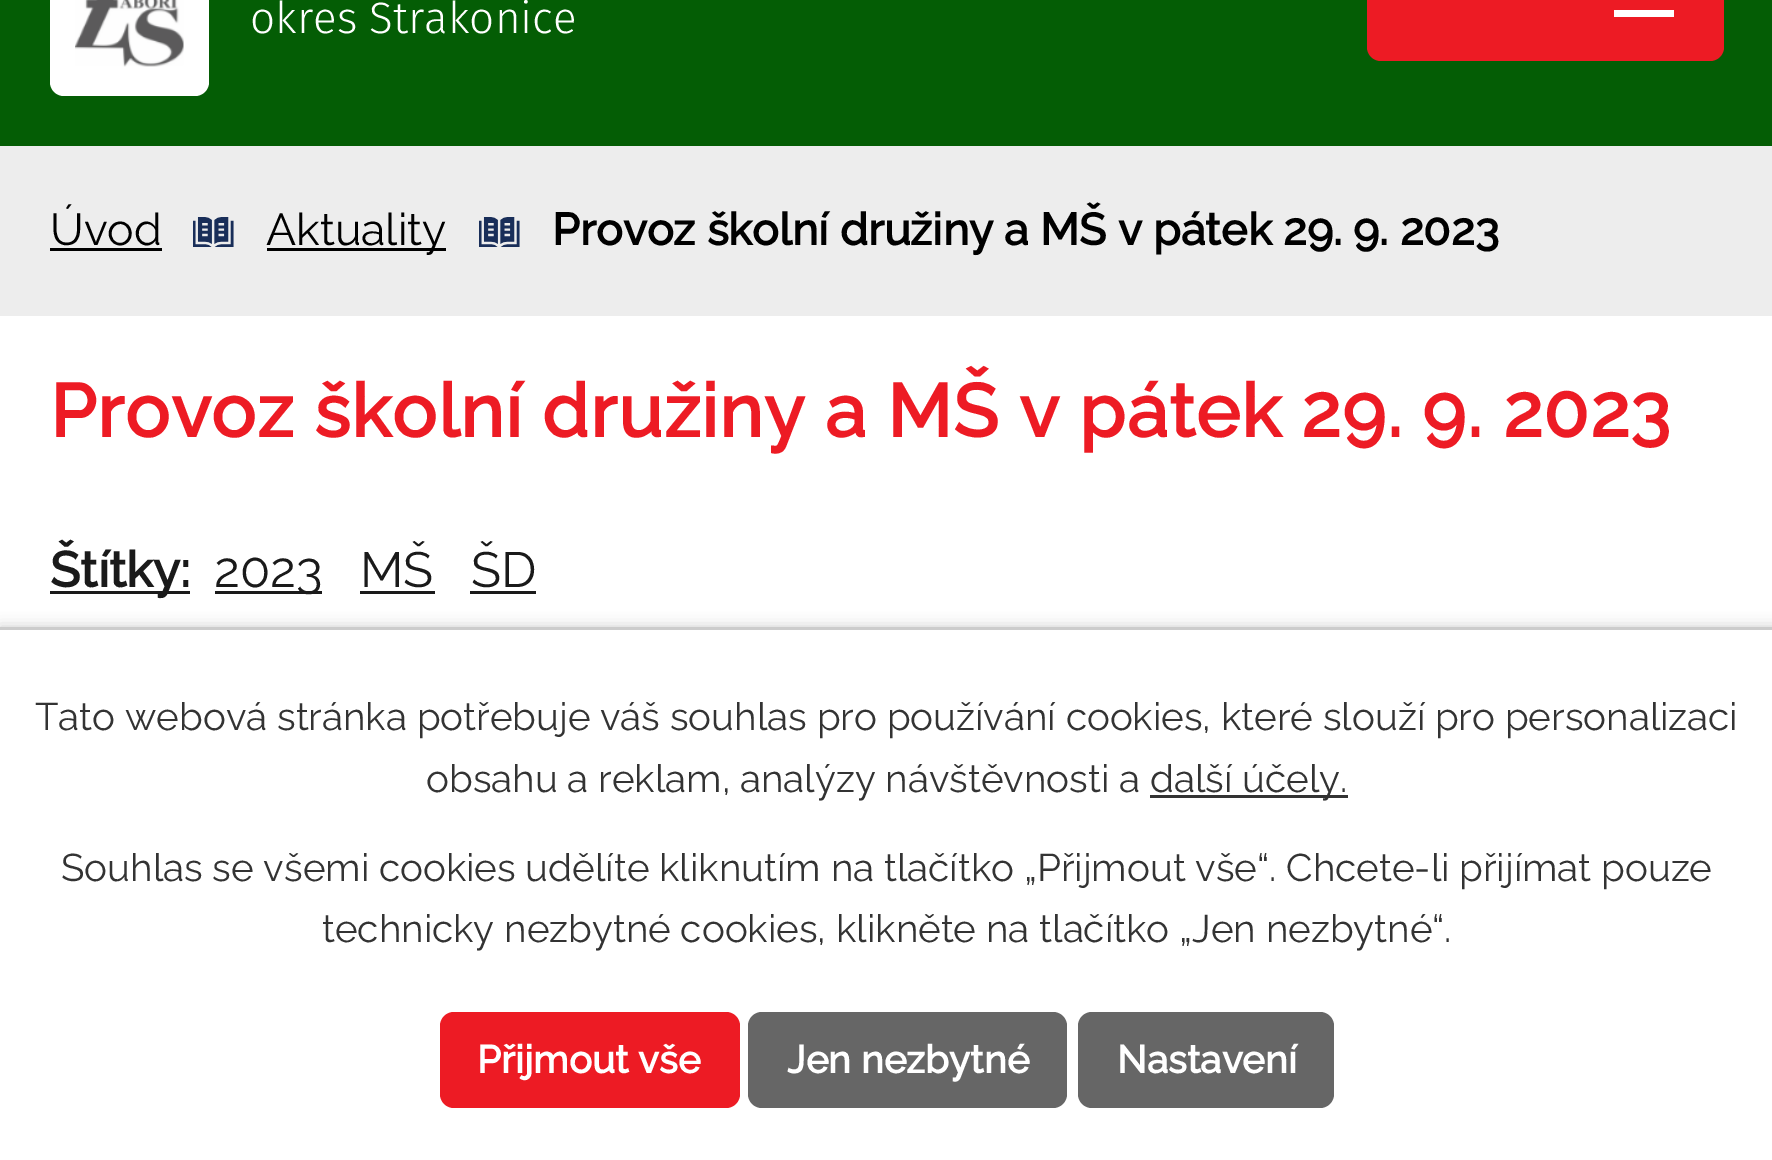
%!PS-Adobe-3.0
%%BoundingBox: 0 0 1772 1160
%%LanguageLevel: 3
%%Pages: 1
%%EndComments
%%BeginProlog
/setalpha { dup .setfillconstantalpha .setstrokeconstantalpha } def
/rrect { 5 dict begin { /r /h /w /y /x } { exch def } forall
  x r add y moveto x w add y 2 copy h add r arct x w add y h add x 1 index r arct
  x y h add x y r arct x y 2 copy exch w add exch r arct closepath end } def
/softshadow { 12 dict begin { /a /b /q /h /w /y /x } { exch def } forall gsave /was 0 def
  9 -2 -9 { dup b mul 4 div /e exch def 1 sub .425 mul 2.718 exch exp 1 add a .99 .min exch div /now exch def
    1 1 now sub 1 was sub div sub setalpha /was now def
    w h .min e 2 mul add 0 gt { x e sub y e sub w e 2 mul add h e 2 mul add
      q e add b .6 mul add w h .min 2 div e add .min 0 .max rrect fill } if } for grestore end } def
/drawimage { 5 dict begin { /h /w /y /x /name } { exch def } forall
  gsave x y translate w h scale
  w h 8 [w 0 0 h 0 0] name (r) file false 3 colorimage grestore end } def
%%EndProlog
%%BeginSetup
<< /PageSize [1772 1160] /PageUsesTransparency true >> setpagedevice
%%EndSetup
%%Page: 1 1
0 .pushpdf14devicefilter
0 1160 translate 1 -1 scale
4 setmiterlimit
1 setgray
0 0 1772 1160 rectfill
0.016 0.365 0.02 setrgbcolor
0 0 1772 146 rectfill
1 setgray
50 -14 159 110 14 rrect fill
(images/1.raw) 75 0 109 67 drawimage
0.929 0.106 0.141 setrgbcolor
1367 -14 357 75 14 rrect fill
1 setgray
newpath 1614 17 moveto 1614 10 lineto 1674 10 lineto 1674 17 lineto closepath 1614 -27 moveto 1674 -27 lineto 1674 -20 lineto 1614 -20 lineto closepath 1614 -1 moveto 1614 -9 lineto 1674 -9 lineto 1674 -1 lineto closepath fill
0.929 setgray
0 146 1772 170 rectfill
0 setgray
50 248 112 3 rectfill
(images/2.raw) 193 217 41 30 drawimage
267 248 179 3 rectfill
(images/2.raw) 479 217 41 30 drawimage
0.102 setgray
50 591 140 3 rectfill
215 591 107 3 rectfill
360 591 75 3 rectfill
470 591 66 3 rectfill
0 setgray
0 627 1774 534 0 7 0.2 softshadow
1 setgray
0 630 1772 530 rectfill
0.8 setgray
0 627 1772 3 rectfill
0.2 setgray
1150 795 198 3 rectfill
0.929 0.106 0.141 setrgbcolor
440 1012 300 96 14 rrect fill
0.4 setgray
748 1012 319 96 14 rrect fill
1078 1012 256 96 14 rrect fill
/FiraSans-Light [44 0 0 -44 0 0] selectfont
1 setgray
250 33 moveto (okres Strakonice) show
/Raleway-Regular [44.55 0 0 -44.55 0 0] selectfont
0 setgray
50 245 moveto (Úvod) show
266 245 moveto (Aktuality) show
/Raleway-Bold [44.55 0 0 -44.55 0 0] selectfont
552 245 moveto (Provoz školní družiny a MŠ v pátek 29. 9. 2023) show
/Raleway-Bold [74.25 0 0 -74.25 0 0] selectfont
0.929 0.106 0.141 setrgbcolor
50 437 moveto 0.95 0 (Provoz školní družiny a MŠ v pátek 29. 9. 2023) ashow
/Raleway-Bold [49.5 0 0 -49.5 0 0] selectfont
0.102 setgray
50 587 moveto (Štítky:) show
/Raleway-Regular [49.5 0 0 -49.5 0 0] selectfont
214 587 moveto (2023) show
360 587 moveto (MŠ) show
471 587 moveto (ŠD) show
/Raleway-Regular [38.5 0 0 -38.5 0 0] selectfont
0.2 setgray
35 730 moveto (Tato webová stránka potřebuje váš souhlas pro používání cookies, které slouží pro personalizaci) show
426 792 moveto (obsahu a reklam, analýzy návštěvnosti a) show
1150 792 moveto (další účely.) show
61 881 moveto (Souhlas se všemi cookies udělíte kliknutím na tlačítko „Přijmout vše“. Chcete-li přijímat pouze) show
322 942 moveto (technicky nezbytné cookies, klikněte na tlačítko „Jen nezbytné“.) show
/Raleway-Bold [38.5 0 0 -38.5 0 0] selectfont
1 setgray
477 1073 moveto (Přijmout vše) show
787 1073 moveto (Jen nezbytné) show
1117 1073 moveto (Nastavení) show
.poppdf14devicefilter showpage
%%EOF
